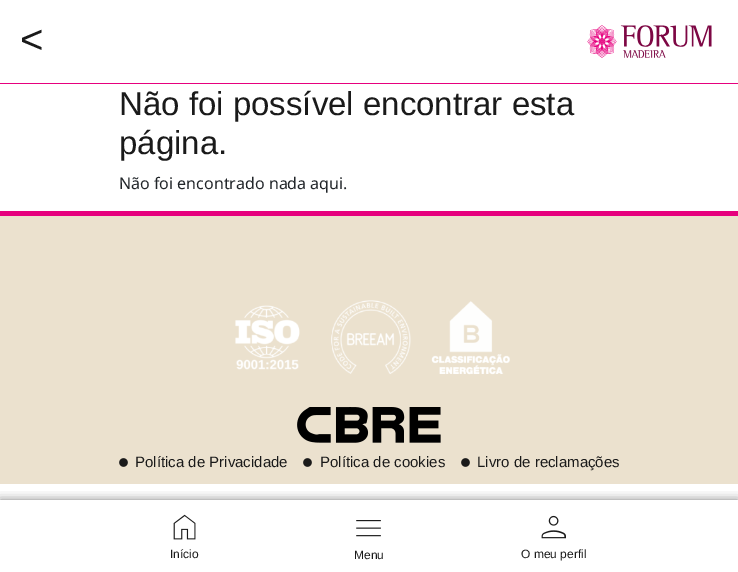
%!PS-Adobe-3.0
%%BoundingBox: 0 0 738 572
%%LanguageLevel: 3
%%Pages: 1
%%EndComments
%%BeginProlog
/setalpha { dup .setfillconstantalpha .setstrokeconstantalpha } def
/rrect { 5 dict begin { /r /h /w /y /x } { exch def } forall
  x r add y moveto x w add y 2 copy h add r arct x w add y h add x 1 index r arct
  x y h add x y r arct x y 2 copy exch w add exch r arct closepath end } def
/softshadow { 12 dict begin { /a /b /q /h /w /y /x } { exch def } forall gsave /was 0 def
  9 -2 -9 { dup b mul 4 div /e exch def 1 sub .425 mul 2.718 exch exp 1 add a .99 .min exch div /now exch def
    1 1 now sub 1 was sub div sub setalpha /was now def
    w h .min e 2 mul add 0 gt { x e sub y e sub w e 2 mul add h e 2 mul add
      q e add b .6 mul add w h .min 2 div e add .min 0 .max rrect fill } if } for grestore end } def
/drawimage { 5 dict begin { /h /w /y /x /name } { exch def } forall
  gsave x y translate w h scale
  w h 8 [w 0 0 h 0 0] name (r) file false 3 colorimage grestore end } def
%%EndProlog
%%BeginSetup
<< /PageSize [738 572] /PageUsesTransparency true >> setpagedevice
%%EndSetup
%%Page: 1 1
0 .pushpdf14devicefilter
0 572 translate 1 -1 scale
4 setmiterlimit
1 setgray
0 0 738 572 rectfill
0.902 0 0.494 setrgbcolor
0 83 738 1 rectfill
(images/1.raw) 587 25 125 33 drawimage
0.922 0.882 0.808 setrgbcolor
0 216 738 268 rectfill
0.902 0 0.494 setrgbcolor
0 211 738 5 rectfill
(images/2.raw) 235 300 275 75 drawimage
(images/3.raw) 297 407 144 36 drawimage
(images/4.raw) 119 458 9 9 drawimage
(images/4.raw) 303 458 9 9 drawimage
(images/4.raw) 461 458 9 9 drawimage
gsave
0 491 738 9 rectclip
0 setgray
0 500 738 72 0 5 0.5 softshadow
grestore
(images/5.raw) 173 514 23 26 drawimage
(images/6.raw) 356 520 25 17 drawimage
(images/7.raw) 541 515 25 24 drawimage
/LiberationSans-Regular [40 0 0 -40 0 0] selectfont
0.102 setgray
20 53 moveto (<) show
/LiberationSans-Regular [33 0 0 -33 0 0] selectfont
119 115 moveto (Não foi possível encontrar esta) show
119 154 moveto (página.) show
/NotoSans-Regular [16 0 0 -16 0 0] selectfont
0.129 0.145 0.161 setrgbcolor
119 189 moveto (Não foi encontrado nada aqui.) show
/LiberationSans-Regular [15 0 0 -15 0 0] selectfont
0.102 setgray
135 467 moveto (Política de Privacidade) show
320 467 moveto (Política de cookies) show
477 467 moveto (Livro de reclamações) show
/LiberationSans-Regular [12 0 0 -12 0 0] selectfont
170 558 moveto (Início) show
354 559 moveto (Menu) show
521 558 moveto (O meu perfil) show
.poppdf14devicefilter showpage
%%EOF
